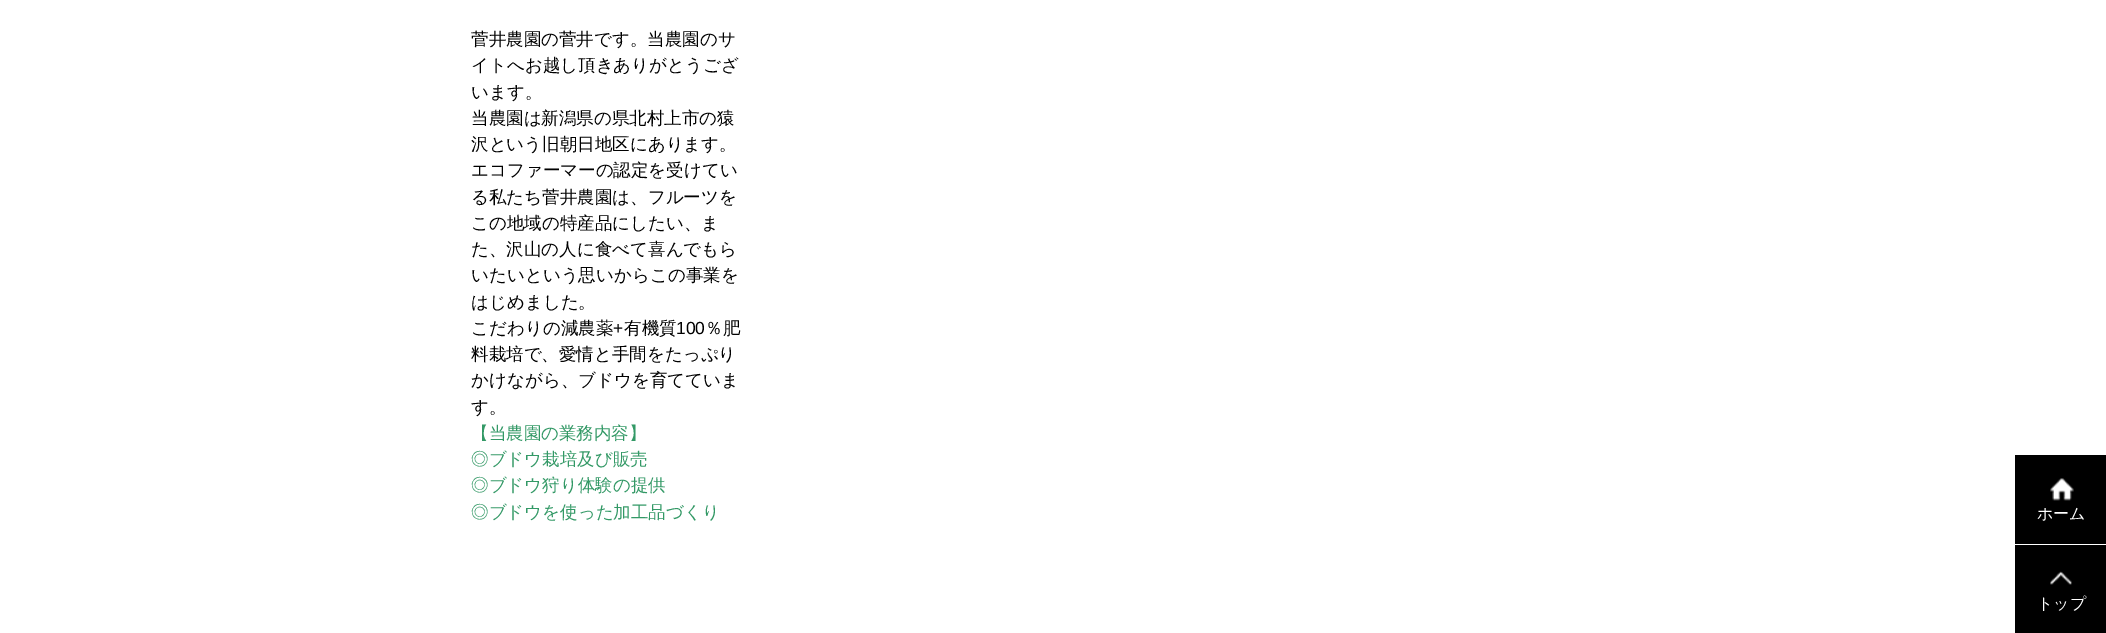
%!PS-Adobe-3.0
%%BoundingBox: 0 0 2106 633
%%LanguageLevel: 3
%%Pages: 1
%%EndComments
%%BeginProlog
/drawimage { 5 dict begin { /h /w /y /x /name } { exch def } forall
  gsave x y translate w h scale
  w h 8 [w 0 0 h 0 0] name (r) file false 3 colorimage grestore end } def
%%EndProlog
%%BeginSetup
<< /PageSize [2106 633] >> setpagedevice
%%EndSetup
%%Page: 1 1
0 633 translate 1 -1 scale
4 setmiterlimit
1 setgray
0 0 2106 633 rectfill
0 setgray
2015 455 91 89 rectfill
(images/1.raw) 2050 478 24 23 drawimage
2015 545 91 88 rectfill
(images/2.raw) 2050 571 22 14 drawimage
/WenQuanYiZenHei-Medium [17.5 0 0 -17.5 0 0] selectfont
471 45 moveto (菅井農園の菅井です。当農園のサ) show
471 71 moveto (イトへお越し頂きありがとうござ) show
471 98 moveto (います。) show
471 124 moveto (当農園は新潟県の県北村上市の猿) show
471 150 moveto (沢という旧朝日地区にあります。) show
471 176 moveto (エコファーマーの認定を受けてい) show
471 203 moveto (る私たち菅井農園は、フルーツを) show
471 229 moveto (この地域の特産品にしたい、ま) show
471 255 moveto (た、沢山の人に食べて喜んでもら) show
471 281 moveto (いたいという思いからこの事業を) show
471 308 moveto (はじめました。) show
471 334 moveto (こだわりの減農薬) show
/LiberationSans-Regular [17.5 0 0 -17.5 0 0] selectfont
613 334 moveto (+) show
/WenQuanYiZenHei-Medium [17.5 0 0 -17.5 0 0] selectfont
624 334 moveto (有機質) show
/LiberationSans-Regular [17.5 0 0 -17.5 0 0] selectfont
676 334 moveto (100) show
/WenQuanYiZenHei-Medium [17.5 0 0 -17.5 0 0] selectfont
705 334 moveto (％肥) show
471 360 moveto (料栽培で、愛情と手間をたっぷり) show
471 386 moveto (かけながら、ブドウを育てていま) show
471 413 moveto (す。) show
0.2 0.6 0.4 setrgbcolor
471 439 moveto (【当農園の業務内容】) show
471 465 moveto (◎ブドウ栽培及び販売) show
471 491 moveto (◎ブドウ狩り体験の提供) show
471 518 moveto (◎ブドウを使った加工品づくり) show
/WenQuanYiZenHei-Medium [16 0 0 -16 0 0] selectfont
1 setgray
2037 519 moveto (ホーム) show
2037 609 moveto (トップ) show
showpage
%%EOF
